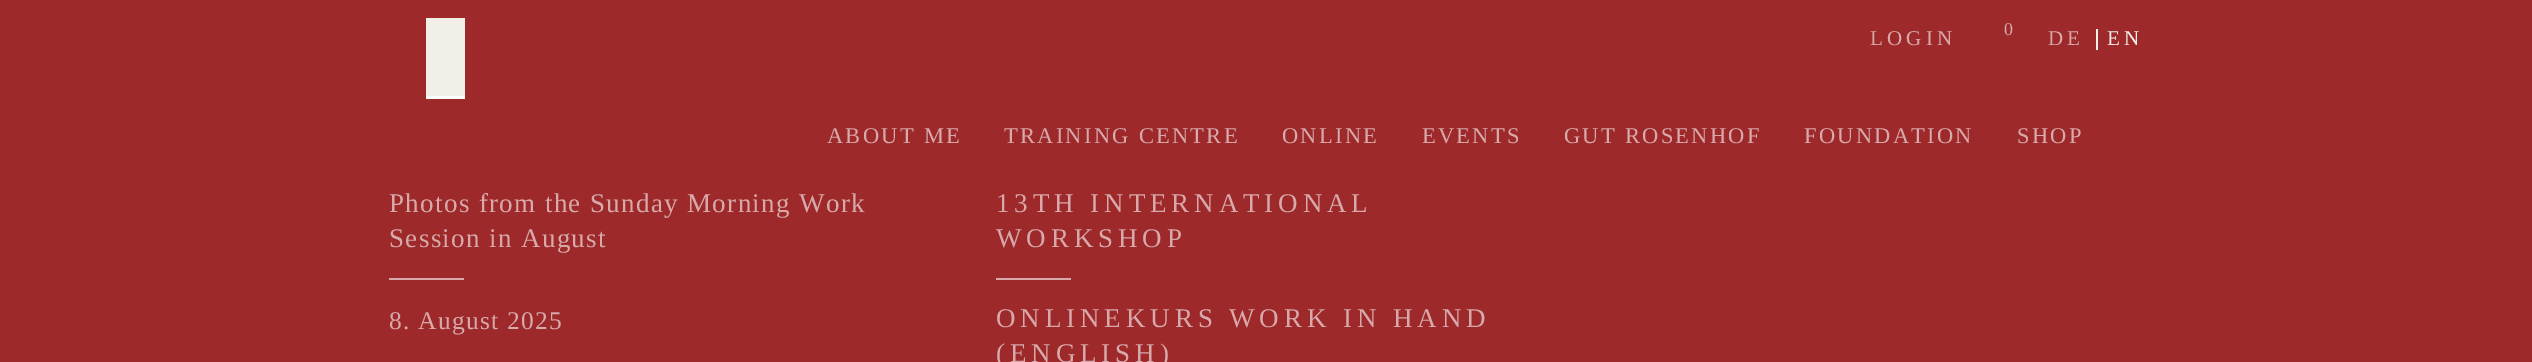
%!PS-Adobe-3.0
%%BoundingBox: 0 0 2532 362
%%LanguageLevel: 3
%%Pages: 1
%%EndComments
%%BeginProlog
%%EndProlog
%%BeginSetup
<< /PageSize [2532 362] >> setpagedevice
%%EndSetup
%%Page: 1 1
0 362 translate 1 -1 scale
4 setmiterlimit
0.62 0.161 0.169 setrgbcolor
0 0 2532 362 rectfill
0.945 0.937 0.91 setrgbcolor
426 18 39 78 rectfill
1 setgray
426 96 39 3 rectfill
0.945 0.937 0.91 setrgbcolor
2096 29 2 21 rectfill
0.847 0.663 0.667 setrgbcolor
389 278 75 2 rectfill
996 278 75 2 rectfill
/LiberationSerif-Regular [18 0 0 -18 0 0] selectfont
2004 35 moveto 5 0 (0) ashow
/LiberationSerif-Regular [21 0 0 -21 0 0] selectfont
1870 45 moveto 4.25 0 (LOGIN) ashow
2048 45 moveto 4.25 0 (DE) ashow
0.945 0.937 0.91 setrgbcolor
2107 45 moveto 4.25 0 (EN) ashow
/LiberationSerif-Regular [22.5 0 0 -22.5 0 0] selectfont
0.847 0.663 0.667 setrgbcolor
827 143 moveto 2.25 0 (ABOUT ME) ashow
1004 143 moveto 2.25 0 (TRAINING CENTRE) ashow
1282 143 moveto 2.25 0 (ONLINE) ashow
1422 143 moveto 2.25 0 (EVENTS) ashow
1564 143 moveto 2.25 0 (GUT ROSENHOF) ashow
1804 143 moveto 2.25 0 (FOUNDATION) ashow
2017 143 moveto 2.25 0 (SHOP) ashow
/LiberationSerif-Regular [27 0 0 -27 0 0] selectfont
389 212 moveto 1.35 0 (Photos from the Sunday Morning Work) ashow
389 247 moveto 1.35 0 (Session in August) ashow
/LiberationSerif-Regular [25.5 0 0 -25.5 0 0] selectfont
389 329 moveto 1.25 0 (8. August 2025) ashow
/LiberationSerif-Regular [27 0 0 -27 0 0] selectfont
996 212 moveto 4.9 0 (13TH INTERNATIONAL) ashow
996 247 moveto 4.9 0 (WORKSHOP) ashow
996 327 moveto 4.9 0 (ONLINEKURS WORK IN HAND) ashow
996 362 moveto 4.9 0 (\(ENGLISH\)) ashow
showpage
%%EOF
